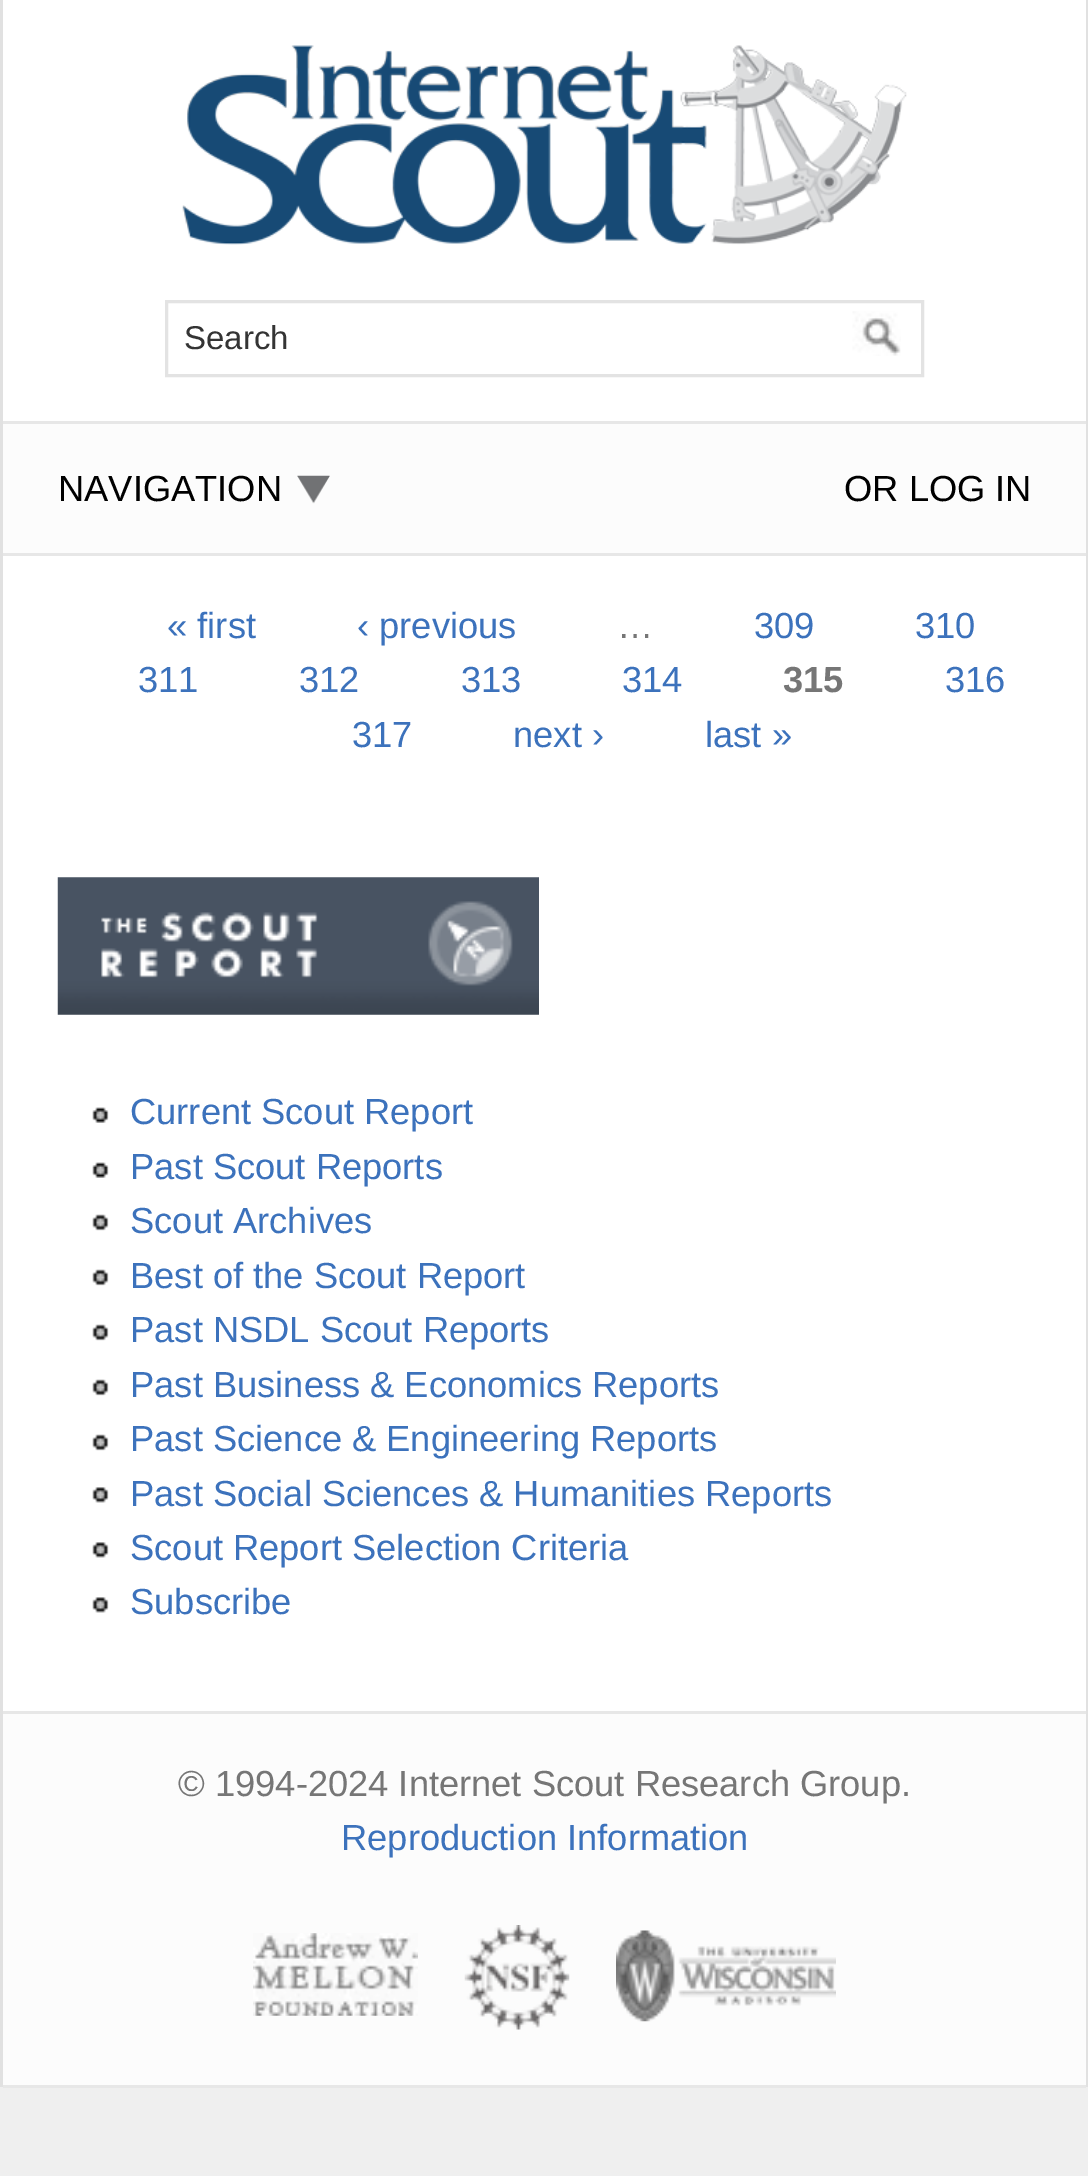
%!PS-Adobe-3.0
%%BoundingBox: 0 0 1088 2176
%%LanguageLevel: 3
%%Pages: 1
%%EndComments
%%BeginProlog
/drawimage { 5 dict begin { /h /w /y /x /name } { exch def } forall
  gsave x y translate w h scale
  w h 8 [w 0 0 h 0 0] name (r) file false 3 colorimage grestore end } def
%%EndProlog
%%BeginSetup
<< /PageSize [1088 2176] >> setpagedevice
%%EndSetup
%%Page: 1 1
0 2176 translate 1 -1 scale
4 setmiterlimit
0.937 setgray
0 0 1088 2176 rectfill
1 setgray
3 0 1083 1711 rectfill
0.882 setgray
1086 0 2 2087 rectfill
0 0 3 2087 rectfill
(images/1.raw) 182 45 725 200 drawimage
0.89 setgray
3 setlinewidth
166.5 301.5 756 74 rectstroke
(images/2.raw) 852 311 49 45 drawimage
0.988 setgray
3 424 1083 129 rectfill
0.906 setgray
3 421 1083 3 rectfill
3 553 1083 3 rectfill
(images/3.raw) 297 475 33 29 drawimage
(images/4.raw) 57 877 482 138 drawimage
(images/5.raw) 92 1107 17 16 drawimage
(images/5.raw) 92 1162 17 16 drawimage
(images/6.raw) 92 1214 17 17 drawimage
(images/6.raw) 92 1269 17 17 drawimage
(images/6.raw) 92 1324 17 17 drawimage
(images/6.raw) 92 1379 17 17 drawimage
(images/6.raw) 92 1434 17 17 drawimage
(images/7.raw) 92 1487 17 16 drawimage
(images/7.raw) 92 1542 17 16 drawimage
(images/7.raw) 92 1597 17 16 drawimage
0.988 setgray
3 1714 1083 371 rectfill
0.906 setgray
3 1711 1083 3 rectfill
3 2085 1083 3 rectfill
(images/8.raw) 253 1933 165 83 drawimage
(images/9.raw) 464 1925 106 105 drawimage
(images/10.raw) 616 1930 220 92 drawimage
/LiberationSans-Regular [33 0 0 -33 0 0] selectfont
0.204 setgray
184 349 moveto (Search) show
/LiberationSans-Regular [36.3 0 0 -36.3 0 0] selectfont
0 setgray
58 501 moveto (NAVIGATION) show
844 501 moveto (OR LOG IN) show
0.235 0.447 0.737 setrgbcolor
167 638 moveto (« first) show
357 638 moveto (‹ previous) show
0.463 setgray
617 638 moveto (…) show
0.235 0.447 0.737 setrgbcolor
754 638 moveto (309) show
915 638 moveto (310) show
138 692 moveto (311) show
299 692 moveto (312) show
461 692 moveto (313) show
622 692 moveto (314) show
/LiberationSans-Bold [36.3 0 0 -36.3 0 0] selectfont
0.463 setgray
783 692 moveto (315) show
/LiberationSans-Regular [36.3 0 0 -36.3 0 0] selectfont
0.235 0.447 0.737 setrgbcolor
945 692 moveto (316) show
352 747 moveto (317) show
513 747 moveto (next ›) show
705 747 moveto (last ») show
130 1124 moveto (Current Scout Report) show
130 1179 moveto (Past Scout Reports) show
130 1233 moveto (Scout Archives) show
130 1288 moveto (Best of the Scout Report) show
130 1342 moveto (Past NSDL Scout Reports) show
130 1397 moveto (Past Business & Economics Reports) show
130 1451 moveto (Past Science & Engineering Reports) show
130 1506 moveto (Past Social Sciences & Humanities Reports) show
130 1560 moveto (Scout Report Selection Criteria) show
130 1614 moveto (Subscribe) show
0.463 setgray
178 1796 moveto (© 1994-2024 Internet Scout Research Group.) show
0.235 0.447 0.737 setrgbcolor
341 1850 moveto (Reproduction Information) show
showpage
%%EOF
